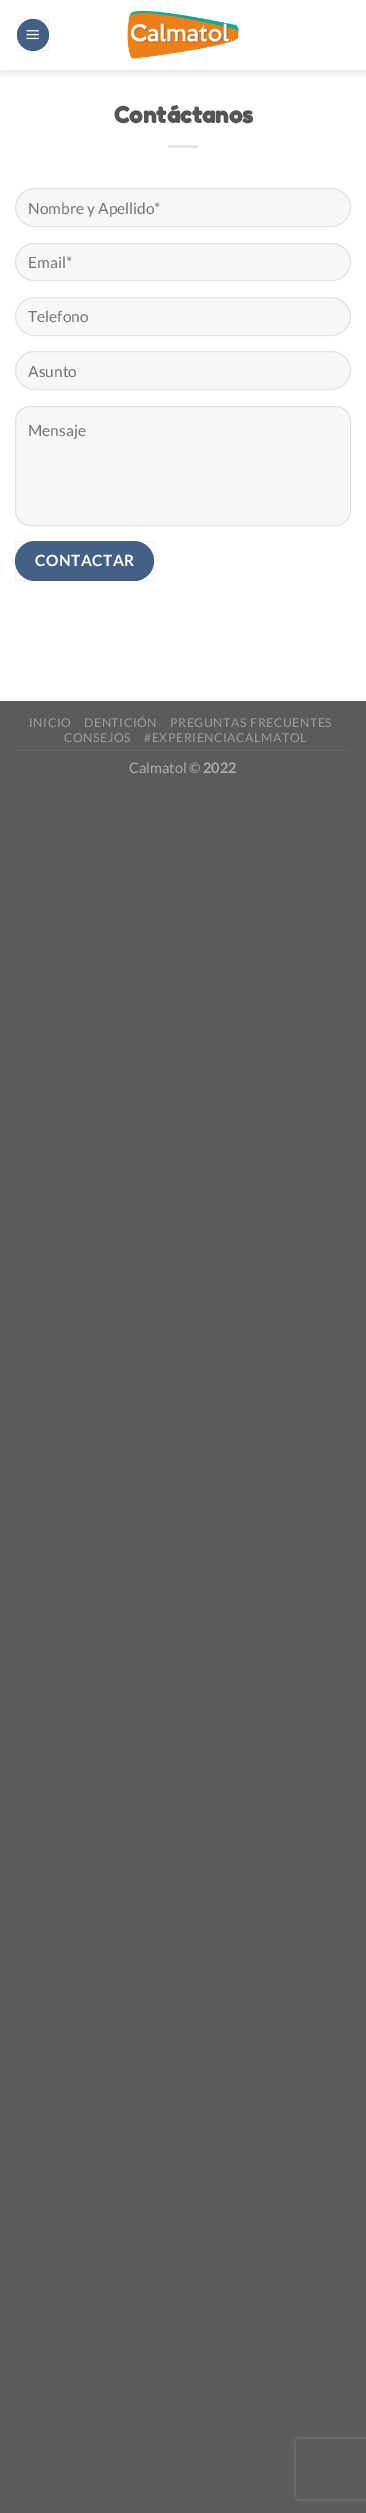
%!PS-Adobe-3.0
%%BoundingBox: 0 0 366 2513
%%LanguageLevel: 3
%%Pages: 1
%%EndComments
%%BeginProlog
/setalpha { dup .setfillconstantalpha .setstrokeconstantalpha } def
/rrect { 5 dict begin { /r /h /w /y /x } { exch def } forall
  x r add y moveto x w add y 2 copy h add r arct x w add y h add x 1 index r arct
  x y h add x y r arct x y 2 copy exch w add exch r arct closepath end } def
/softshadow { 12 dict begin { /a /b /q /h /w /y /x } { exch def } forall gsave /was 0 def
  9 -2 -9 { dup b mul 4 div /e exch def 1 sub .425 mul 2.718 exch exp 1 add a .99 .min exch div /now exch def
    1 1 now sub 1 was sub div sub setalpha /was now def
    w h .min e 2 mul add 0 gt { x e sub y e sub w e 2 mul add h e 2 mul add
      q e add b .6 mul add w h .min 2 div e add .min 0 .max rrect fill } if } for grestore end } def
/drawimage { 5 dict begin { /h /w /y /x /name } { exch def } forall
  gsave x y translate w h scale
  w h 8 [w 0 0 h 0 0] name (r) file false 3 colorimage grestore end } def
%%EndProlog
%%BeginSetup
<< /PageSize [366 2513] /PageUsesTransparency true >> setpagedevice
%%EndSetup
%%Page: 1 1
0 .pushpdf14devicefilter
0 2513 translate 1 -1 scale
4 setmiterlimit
0.357 setgray
0 0 366 2513 rectfill
1 setgray
0 0 366 701 rectfill
gsave
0 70 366 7 rectclip
0 setgray
1 1 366 70 0 5 0.15 softshadow
grestore
0.267 0.376 0.518 setrgbcolor
newpath 33 35 16 0 360 arc closepath fill
0.05 setalpha
0 setgray
17.5 19.5 31 31 rectstroke
1 setalpha
(images/1.raw) 26 30 13 10 drawimage
(images/2.raw) 127 10 112 49 drawimage
0.902 setgray
168 145 30 3 rectfill
0.969 setgray
15 188 336 39 19.5 rrect fill
0.09 setalpha
0 setgray
15.5 188.5 335 38 19 rrect stroke
1 setalpha
0.969 setgray
15 243 336 38 19 rrect fill
0.09 setalpha
0 setgray
15.5 243.5 335 37 18.5 rrect stroke
1 setalpha
0.969 setgray
15 297 336 39 19.5 rrect fill
0.09 setalpha
0 setgray
15.5 297.5 335 38 19 rrect stroke
1 setalpha
0.969 setgray
15 351 336 39 19.5 rrect fill
0.09 setalpha
0 setgray
15.5 351.5 335 38 19 rrect stroke
1 setalpha
0.969 setgray
15 406 336 120 15 rrect fill
0.09 setalpha
0 setgray
15.5 406.5 335 119 14.5 rrect stroke
1 setalpha
0.267 0.376 0.518 setrgbcolor
15 541 139 40 20 rrect fill
0.05 setalpha
0 setgray
15.5 541.5 138 39 rectstroke
1 setalpha
0.396 setgray
15 750 336 1 rectfill
gsave
newpath 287 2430 moveto 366 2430 lineto 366 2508 lineto 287 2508 lineto closepath 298 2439 moveto 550 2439 lineto 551 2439 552 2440 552 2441 curveto 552 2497 lineto 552 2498 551 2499 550 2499 curveto 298 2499 lineto 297 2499 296 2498 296 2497 curveto 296 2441 lineto 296 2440 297 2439 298 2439 curveto closepath eoclip newpath
0.502 setgray
296 2439 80 60 2 2.5 1 softshadow
grestore
/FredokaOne-Bold [22.5 0 0 -22.5 0 0] selectfont
0.333 setgray
114 123 moveto (Contáctanos) show
/Lato-Regular [15.5 0 0 -15.5 0 0] selectfont
0.459 setgray
28 214 moveto (Nombre y Apellido*) show
28 268 moveto (Email*) show
28 322 moveto (Telefono) show
28 377 moveto (Asunto) show
28 436 moveto (Mensaje) show
/Lato-Bold [15.5 0 0 -15.5 0 0] selectfont
1 setgray
35 566 moveto 0.5 0 (CONTACTAR) ashow
/Lato-Regular [12.25 0 0 -12.25 0 0] selectfont
0.616 setgray
29 727 moveto 0.6 0 (INICIO) ashow
84 727 moveto 0.6 0 (DENTICIÓN) ashow
170 727 moveto 0.6 0 (PREGUNTAS FRECUENTES) ashow
64 742 moveto 0.6 0 (CONSEJOS) ashow
144 742 moveto 0.6 0 (#EXPERIENCIACALMATOL) ashow
/Lato-Regular [14.5 0 0 -14.5 0 0] selectfont
0.678 setgray
129 773 moveto (Calmatol ©) show
/Lato-Bold [14.5 0 0 -14.5 0 0] selectfont
203 773 moveto (2022) show
.poppdf14devicefilter showpage
%%EOF
